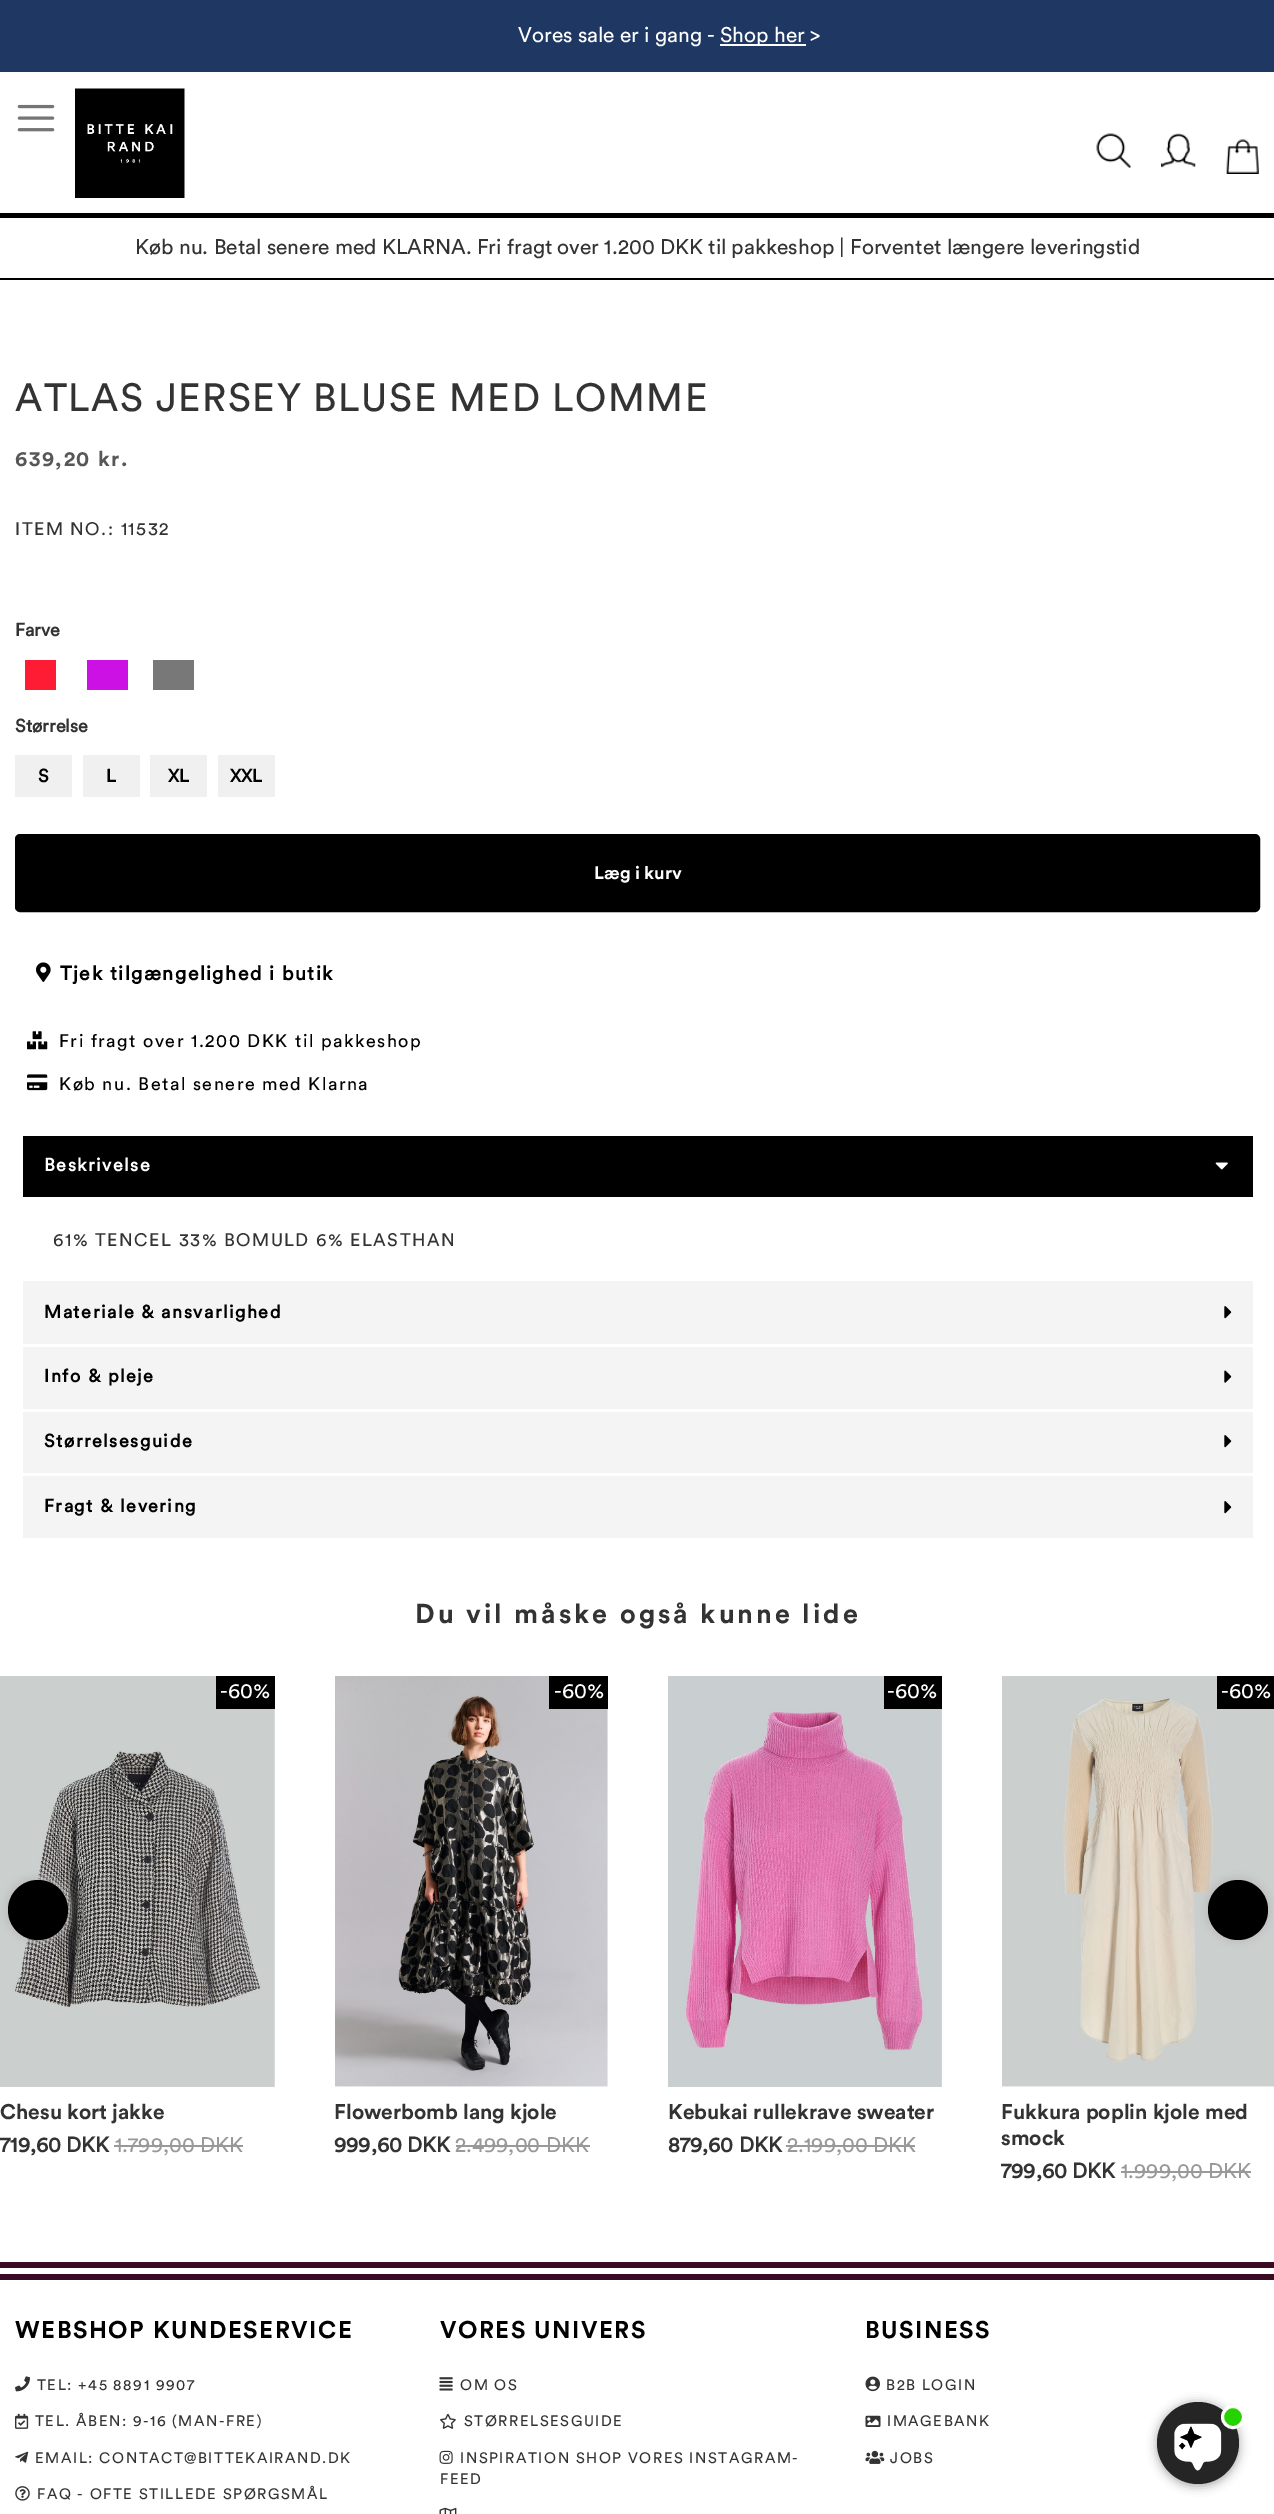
%!PS-Adobe-3.0
%%BoundingBox: 0 0 1274 2514
%%LanguageLevel: 3
%%Pages: 1
%%EndComments
%%BeginProlog
/setalpha { dup .setfillconstantalpha .setstrokeconstantalpha } def
/rrect { 5 dict begin { /r /h /w /y /x } { exch def } forall
  x r add y moveto x w add y 2 copy h add r arct x w add y h add x 1 index r arct
  x y h add x y r arct x y 2 copy exch w add exch r arct closepath end } def
/softshadow { 12 dict begin { /a /b /q /h /w /y /x } { exch def } forall gsave /was 0 def
  9 -2 -9 { dup b mul 4 div /e exch def 1 sub .425 mul 2.718 exch exp 1 add a .99 .min exch div /now exch def
    1 1 now sub 1 was sub div sub setalpha /was now def
    w h .min e 2 mul add 0 gt { x e sub y e sub w e 2 mul add h e 2 mul add
      q e add b .6 mul add w h .min 2 div e add .min 0 .max rrect fill } if } for grestore end } def
/drawimage { 5 dict begin { /h /w /y /x /name } { exch def } forall
  gsave x y translate w h scale
  w h 8 [w 0 0 h 0 0] name (r) file false 3 colorimage grestore end } def
%%EndProlog
%%BeginSetup
<< /PageSize [1274 2514] /PageUsesTransparency true >> setpagedevice
%%EndSetup
%%Page: 1 1
0 .pushpdf14devicefilter
0 2514 translate 1 -1 scale
4 setmiterlimit
1 setgray
0 0 1274 2514 rectfill
0.122 0.22 0.388 setrgbcolor
0 0 1274 72 rectfill
1 setgray
720 44 86 2 rectfill
(images/1.raw) 17 104 38 28 drawimage
(images/2.raw) 75 88 110 110 drawimage
(images/3.raw) 1096 133 35 35 drawimage
(images/4.raw) 1161 133 35 35 drawimage
(images/5.raw) 1226 139 33 35 drawimage
0 setgray
0 213 1274 5 rectfill
0 278 1274 2 rectfill
0.996 0.11 0.204 setrgbcolor
25 660 31 30 rectfill
0.8 0.067 0.894 setrgbcolor
87 660 41 30 rectfill
0.471 setgray
153 660 41 30 rectfill
0.941 setgray
15 755 57 42 rectfill
83 755 57 42 rectfill
150 755 57 42 rectfill
218 755 57 42 rectfill
0 setgray
16 835 1243 76 4 rrect gsave fill grestore
2 setlinewidth
stroke
(images/6.raw) 36 962 15 20 drawimage
(images/7.raw) 27 1031 21 19 drawimage
(images/8.raw) 27 1074 21 17 drawimage
23 1136 1230 61 rectfill
(images/9.raw) 1215 1162 13 8 drawimage
0.957 setgray
23 1281 1230 63 rectfill
(images/10.raw) 1224 1306 8 13 drawimage
23 1347 1230 62 rectfill
(images/11.raw) 1224 1370 8 13 drawimage
23 1412 1230 61 rectfill
(images/10.raw) 1224 1435 8 13 drawimage
23 1476 1230 62 rectfill
(images/10.raw) 1224 1501 8 13 drawimage
(images/12.raw) 0 1676 275 411 drawimage
0 setgray
216 1676 59 33 rectfill
0.6 setgray
114 2145 129 2 rectfill
(images/13.raw) 335 1676 273 411 drawimage
0 setgray
549 1676 59 33 rectfill
0.6 setgray
456 2145 134 2 rectfill
(images/14.raw) 668 1676 274 411 drawimage
0 setgray
884 1676 58 33 rectfill
0.6 setgray
786 2145 129 2 rectfill
(images/15.raw) 1002 1676 272 411 drawimage
0 setgray
1217 1676 57 33 rectfill
0.6 setgray
1121 2171 130 2 rectfill
0.733 setgray
6 1878 63 63 31.5 4 1 softshadow
0 setgray
newpath 38 1910 30 0 360 arc closepath fill
0.733 setgray
1206 1878 63 63 31.5 4 1 softshadow
0 setgray
newpath 1238 1910 30 0 360 arc closepath fill
0.231 0.039 0.141 setrgbcolor
0 2262 1274 6 rectfill
0 2274 1274 6 rectfill
(images/16.raw) 15 2376 15 16 drawimage
(images/17.raw) 15 2413 14 16 drawimage
(images/18.raw) 15 2451 14 12 drawimage
(images/19.raw) 15 2486 15 15 drawimage
(images/20.raw) 439 2377 14 14 drawimage
(images/21.raw) 440 2413 16 16 drawimage
(images/22.raw) 439 2450 14 14 drawimage
(images/23.raw) 439 2507 18 7 drawimage
(images/24.raw) 865 2376 15 16 drawimage
(images/25.raw) 865 2415 16 12 drawimage
(images/26.raw) 865 2450 20 14 drawimage
0 setgray
1157 2403 82 83 41 5 0.35 softshadow
0.145 setgray
newpath 1198 2443 41 0 360 arc closepath fill
(images/27.raw) 1174 2423 48 48 drawimage
0.145 0.827 0 setrgbcolor
newpath 1233 2417 10.5 0 360 arc closepath gsave fill grestore
1 setgray
3 setlinewidth
stroke
/Circular-Regular [21 0 0 -21 0 0] selectfont
518 42 moveto (Vores sale er i gang -) show
720 42 moveto (Shop her >) show
0.2 setgray
135 254 moveto (Køb nu. Betal senere med KLARNA. Fri fragt over 1.200 DKK til pakkeshop | Forventet længere leveringstid) show
/Circular-Regular [39 0 0 -39 0 0] selectfont
15 411 moveto 1.5 0 (ATLAS JERSEY BLUSE MED LOMME) ashow
/Circular-Bold [21 0 0 -21 0 0] selectfont
0.341 setgray
15 466 moveto 1.5 0 (639,20 kr.) ashow
/Circular-Regular [18 0 0 -18 0 0] selectfont
0.2 setgray
15 535 moveto 1.5 0 (ITEM NO.: 11532) ashow
/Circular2-Bold [18 0 0 -18 0 0] selectfont
15 636 moveto (Farve) show
15 732 moveto (Størrelse) show
0 setgray
38 782 moveto (S) show
106 782 moveto (L) show
168 782 moveto (XL) show
230 782 moveto (XXL) show
/Circular-Bold [18 0 0 -18 0 0] selectfont
1 setgray
594 879 moveto (Læg i kurv) show
/Circular2-Bold [19.5 0 0 -19.5 0 0] selectfont
0 setgray
60 980 moveto 1.5 0 (Tjek tilgængelighed i butik) ashow
/Circular-Regular [18 0 0 -18 0 0] selectfont
59 1047 moveto 1.5 0 (Fri fragt over 1.200 DKK til pakkeshop) ashow
59 1090 moveto 1.5 0 (Køb nu. Betal senere med Klarna) ashow
/Circular2-Bold [18 0 0 -18 0 0] selectfont
1 setgray
44 1171 moveto 1.5 0 (Beskrivelse) ashow
/Circular-Regular [18 0 0 -18 0 0] selectfont
0.2 setgray
53 1246 moveto 1.5 0 (61% TENCEL 33% BOMULD 6% ELASTHAN) ashow
/Circular2-Bold [18 0 0 -18 0 0] selectfont
0 setgray
44 1318 moveto 1.5 0 (Materiale & ansvarlighed) ashow
44 1382 moveto 1.5 0 (Info & pleje) ashow
44 1447 moveto 1.5 0 (Størrelsesguide) ashow
44 1512 moveto 1.5 0 (Fragt & levering) ashow
/Circular-Bold [27 0 0 -27 0 0] selectfont
0.2 setgray
415 1623 moveto 3 0 (Du vil måske også kunne lide) ashow
/Circular-Regular [21 0 0 -21 0 0] selectfont
1 setgray
220 1698 moveto (-60%) show
/Circular-Bold [21 0 0 -21 0 0] selectfont
0.2 setgray
0 2119 moveto (Chesu kort jakke) show
/Circular2-Bold [21 0 0 -21 0 0] selectfont
0 2152 moveto (719,60 DKK) show
/Circular-Regular [21 0 0 -21 0 0] selectfont
0.6 setgray
115 2152 moveto (1.799,00 DKK) show
1 setgray
554 1698 moveto (-60%) show
/Circular-Bold [21 0 0 -21 0 0] selectfont
0.2 setgray
334 2119 moveto (Flowerbomb lang kjole) show
/Circular2-Bold [21 0 0 -21 0 0] selectfont
334 2152 moveto (999,60 DKK) show
/Circular-Regular [21 0 0 -21 0 0] selectfont
0.6 setgray
455 2152 moveto (2.499,00 DKK) show
1 setgray
887 1698 moveto (-60%) show
/Circular-Bold [21 0 0 -21 0 0] selectfont
0.2 setgray
668 2119 moveto (Kebukai rullekrave sweater) show
/Circular2-Bold [21 0 0 -21 0 0] selectfont
668 2152 moveto (879,60 DKK) show
/Circular-Regular [21 0 0 -21 0 0] selectfont
0.6 setgray
787 2152 moveto (2.199,00 DKK) show
1 setgray
1221 1698 moveto (-60%) show
/Circular-Bold [21 0 0 -21 0 0] selectfont
0.2 setgray
1001 2119 moveto (Fukkura poplin kjole med) show
1001 2145 moveto (smock) show
/Circular2-Bold [21 0 0 -21 0 0] selectfont
1001 2178 moveto (799,60 DKK) show
/Circular-Regular [21 0 0 -21 0 0] selectfont
0.6 setgray
1121 2178 moveto (1.999,00 DKK) show
/Circular-Bold [24 0 0 -24 0 0] selectfont
0 setgray
15 2338 moveto 1.5 0 (WEBSHOP KUNDESERVICE) ashow
/Circular-Regular [15 0 0 -15 0 0] selectfont
0.2 setgray
37 2390 moveto 1.5 0 (TEL: +45 8891 9907) ashow
35 2426 moveto 1.5 0 (TEL. ÅBEN: 9-16 \(MAN-FRE\)) ashow
35 2463 moveto 1.5 0 (EMAIL: CONTACT@BITTEKAIRAND.DK) ashow
37 2499 moveto 1.5 0 (FAQ - OFTE STILLEDE SPØRGSMÅL) ashow
/Circular-Bold [24 0 0 -24 0 0] selectfont
0 setgray
440 2338 moveto 1.5 0 (VORES UNIVERS) ashow
/Circular-Regular [15 0 0 -15 0 0] selectfont
0.2 setgray
460 2390 moveto 1.5 0 (OM OS) ashow
464 2426 moveto 1.5 0 (STØRRELSESGUIDE) ashow
460 2463 moveto 1.5 0 (INSPIRATION SHOP VORES INSTAGRAM-) ashow
440 2484 moveto 1.5 0 (FEED) ashow
/Circular-Bold [24 0 0 -24 0 0] selectfont
0 setgray
865 2338 moveto 1.5 0 (BUSINESS) ashow
/Circular-Regular [15 0 0 -15 0 0] selectfont
0.2 setgray
886 2390 moveto 1.5 0 (B2B LOGIN) ashow
887 2426 moveto 1.5 0 (IMAGEBANK) ashow
890 2463 moveto 1.5 0 (JOBS) ashow
.poppdf14devicefilter showpage
%%EOF
